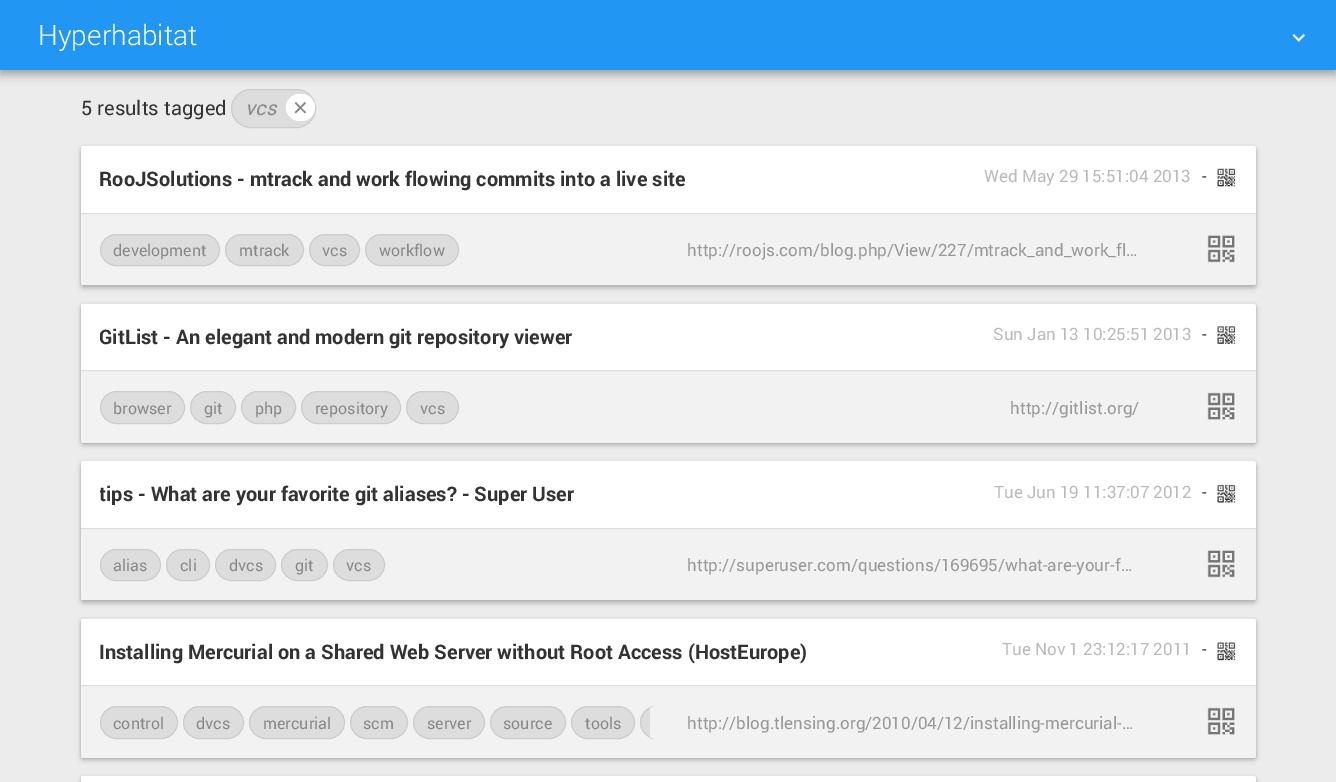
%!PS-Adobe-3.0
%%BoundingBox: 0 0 1336 782
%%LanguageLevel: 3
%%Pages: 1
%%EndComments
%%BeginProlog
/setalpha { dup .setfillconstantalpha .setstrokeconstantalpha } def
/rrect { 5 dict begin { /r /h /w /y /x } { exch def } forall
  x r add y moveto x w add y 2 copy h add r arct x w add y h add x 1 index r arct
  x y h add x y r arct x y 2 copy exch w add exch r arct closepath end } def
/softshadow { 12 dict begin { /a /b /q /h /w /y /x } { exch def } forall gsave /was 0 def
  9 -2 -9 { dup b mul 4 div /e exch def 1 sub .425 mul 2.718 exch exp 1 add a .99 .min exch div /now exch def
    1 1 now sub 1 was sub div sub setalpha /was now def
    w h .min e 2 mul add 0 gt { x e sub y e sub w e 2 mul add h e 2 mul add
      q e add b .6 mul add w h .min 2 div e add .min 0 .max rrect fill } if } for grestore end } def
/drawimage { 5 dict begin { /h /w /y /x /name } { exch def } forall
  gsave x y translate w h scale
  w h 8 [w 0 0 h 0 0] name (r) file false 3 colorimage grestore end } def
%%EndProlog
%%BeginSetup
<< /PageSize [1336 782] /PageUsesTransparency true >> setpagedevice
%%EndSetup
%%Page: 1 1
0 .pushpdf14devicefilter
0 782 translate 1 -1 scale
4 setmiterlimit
0.925 setgray
0 0 1336 782 rectfill
0.867 setgray
231.5 89.5 84 38 19 rrect gsave fill grestore
0.8 setgray
stroke
0 setgray
0 5 1336 70 0 5 0.28 softshadow
0 0 1336 70 0 2.5 0.14 softshadow
0.129 0.588 0.953 setrgbcolor
0 0 1336 70 rectfill
(images/1.raw) 1292 33 13 9 drawimage
1 setgray
286 94 29 27 13.5 rrect fill
0 setgray
81 149 1175 139 2.5 2.5 0.24 softshadow
81 146 1175 139 2.5 1 0.12 softshadow
0.898 setgray
newpath 84 145 moveto 82 145 81 146 81 148 curveto 81 283 lineto 81 149 lineto 81 147 82 146 84 146 curveto 1254 146 lineto 1255 146 1256 147 1256 148 curveto 1256 146 1255 145 1254 145 curveto closepath fill
1 setgray
81 146 1175 139 2.5 rrect fill
0.867 setgray
81 213 1175 1 rectfill
(images/2.raw) 1217 168 19 19 drawimage
0.949 setgray
newpath 81 214 moveto 1256 214 lineto 1256 282.5 lineto 1256 284 1255 285 1253.5 285 curveto 83.5 285 lineto 82 285 81 284 81 282.5 curveto closepath fill
0.933 setgray
81 214 1175 1 rectfill
0.867 setgray
100.5 234.5 119 31 15.5 rrect gsave fill grestore
0.8 setgray
stroke
0.867 setgray
225.5 234.5 78 31 15.5 rrect gsave fill grestore
0.8 setgray
stroke
0.867 setgray
309.5 234.5 50 31 15.5 rrect gsave fill grestore
0.8 setgray
stroke
0.867 setgray
365.5 234.5 93 31 15.5 rrect gsave fill grestore
0.8 setgray
stroke
(images/3.raw) 1207 235 28 28 drawimage
0 setgray
81 306 1175 139 2.5 2.5 0.24 softshadow
81 304 1175 139 2.5 1 0.12 softshadow
0.898 setgray
newpath 84 303 moveto 82 303 81 304 81 306 curveto 81 440 lineto 81 306 lineto 81 305 82 304 84 304 curveto 1254 304 lineto 1255 304 1256 304 1256 305 curveto 1256 304 1255 303 1254 303 curveto closepath fill
1 setgray
81 304 1175 139 2.5 rrect fill
0.867 setgray
81 370 1175 1 rectfill
(images/4.raw) 1217 326 19 18 drawimage
0.949 setgray
newpath 81 371 moveto 1256 371 lineto 1256 440.5 lineto 1256 442 1255 443 1253.5 443 curveto 83.5 443 lineto 82 443 81 442 81 440.5 curveto closepath fill
0.933 setgray
81 371 1175 1 rectfill
0.867 setgray
100.5 391.5 84 32 16 rrect gsave fill grestore
0.8 setgray
stroke
0.867 setgray
190.5 391.5 45 32 16 rrect gsave fill grestore
0.8 setgray
stroke
0.867 setgray
241.5 391.5 54 32 16 rrect gsave fill grestore
0.8 setgray
stroke
0.867 setgray
301.5 391.5 99 32 16 rrect gsave fill grestore
0.8 setgray
stroke
0.867 setgray
406.5 391.5 52 32 16 rrect gsave fill grestore
0.8 setgray
stroke
(images/5.raw) 1207 392 28 28 drawimage
0 setgray
81 464 1175 139 2.5 2.5 0.24 softshadow
81 461 1175 139 2.5 1 0.12 softshadow
0.898 setgray
newpath 84 460 moveto 82 460 81 461 81 462 curveto 81 598 lineto 81 464 lineto 81 462 82 461 84 461 curveto 1254 461 lineto 1255 461 1256 462 1256 463 curveto 1256 461 1255 460 1254 460 curveto closepath fill
1 setgray
81 461 1175 139 2.5 rrect fill
0.867 setgray
81 528 1175 1 rectfill
(images/6.raw) 1217 484 19 19 drawimage
0.949 setgray
newpath 81 529 moveto 1256 529 lineto 1256 597.5 lineto 1256 599 1255 600 1253.5 600 curveto 83.5 600 lineto 82 600 81 599 81 597.5 curveto closepath fill
0.933 setgray
81 529 1175 1 rectfill
0.867 setgray
100.5 549.5 60 31 15.5 rrect gsave fill grestore
0.8 setgray
stroke
0.867 setgray
166.5 549.5 43 31 15.5 rrect gsave fill grestore
0.8 setgray
stroke
0.867 setgray
215.5 549.5 60 31 15.5 rrect gsave fill grestore
0.8 setgray
stroke
0.867 setgray
281.5 549.5 46 31 15.5 rrect gsave fill grestore
0.8 setgray
stroke
0.867 setgray
333.5 549.5 51 31 15.5 rrect gsave fill grestore
0.8 setgray
stroke
(images/7.raw) 1207 550 28 28 drawimage
0 setgray
81 621 1175 139 2.5 2.5 0.24 softshadow
81 619 1175 139 2.5 1 0.12 softshadow
0.898 setgray
newpath 84 618 moveto 82 618 81 619 81 620 curveto 81 755 lineto 81 621 lineto 81 620 82 619 84 619 curveto 1254 619 lineto 1255 619 1256 619 1256 620 curveto 1256 619 1255 618 1254 618 curveto closepath fill
1 setgray
81 619 1175 139 2.5 rrect fill
0.867 setgray
81 685 1175 1 rectfill
(images/8.raw) 1217 642 19 19 drawimage
0.949 setgray
newpath 81 686 moveto 1256 686 lineto 1256 755.5 lineto 1256 757 1255 758 1253.5 758 curveto 83.5 758 lineto 82 758 81 757 81 755.5 curveto closepath fill
0.933 setgray
81 686 1175 1 rectfill
0.867 setgray
100.5 706.5 77 32 16 rrect gsave fill grestore
0.8 setgray
stroke
0.867 setgray
183.5 706.5 60 32 16 rrect gsave fill grestore
0.8 setgray
stroke
0.867 setgray
249.5 706.5 95 32 16 rrect gsave fill grestore
0.8 setgray
stroke
0.867 setgray
350.5 706.5 57 32 16 rrect gsave fill grestore
0.8 setgray
stroke
0.867 setgray
413.5 706.5 71 32 16 rrect gsave fill grestore
0.8 setgray
stroke
0.867 setgray
490.5 706.5 75 32 16 rrect gsave fill grestore
0.8 setgray
stroke
0.867 setgray
571.5 706.5 63 32 16 rrect gsave fill grestore
0.8 setgray
stroke
0.867 setgray
newpath 656.5 706 moveto 650 706 lineto 650 739 lineto 656.5 739 lineto 647.5 739 640 731.5 640 722.5 curveto 640 713.5 647.5 706 656.5 706 curveto closepath fill
gsave
100 706 550 33 rectclip
0.8 setgray
640.5 706.5 78 32 16 rrect stroke
grestore
(images/5.raw) 1207 707 28 28 drawimage
0 setgray
81 779 1175 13 2.5 2.5 0.24 softshadow
81 776 1175 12 2.5 1 0.12 softshadow
0.898 setgray
newpath 84 775 moveto 82 775 81 776 81 778 curveto 81 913 lineto 81 779 lineto 81 777 82 776 84 776 curveto 1254 776 lineto 1255 776 1256 777 1256 778 curveto 1256 776 1255 775 1254 775 curveto closepath fill
1 setgray
81 776 1175 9 2.5 rrect fill
/Roboto-Light [28 0 0 -28 0 0] selectfont
38 45 moveto (Hyperhabitat) show
/Roboto-Regular [20 0 0 -20 0 0] selectfont
0.2 setgray
81 115 moveto (5 results tagged) show
/Roboto-Italic [20 0 0 -20 0 0] selectfont
0.533 setgray
245 115 moveto (vcs) show
/DejaVuSans-Regular [20 0 0 -20 0 0] selectfont
292 115 moveto (✕) show
/Roboto-Bold [20 0 0 -20 0 0] selectfont
0.2 setgray
99 186 moveto (RooJSolutions - mtrack and work flowing commits into a live site) show
/Roboto-Regular [17 0 0 -17 0 0] selectfont
0.733 setgray
984 182 moveto (Wed May 29 15:51:04 2013) show
0.2 setgray
1202 182 moveto (-) show
/Roboto-Regular [16 0 0 -16 0 0] selectfont
0.533 setgray
113 256 moveto (development) show
239 256 moveto (mtrack) show
322 256 moveto (vcs) show
379 256 moveto (workflow) show
/Roboto-Regular [17 0 0 -17 0 0] selectfont
0.6 setgray
687 256 moveto (http://roojs.com/blog.php/View/227/mtrack_and_work_fl…) show
/Roboto-Bold [20 0 0 -20 0 0] selectfont
0.2 setgray
99 344 moveto (GitList - An elegant and modern git repository viewer) show
/Roboto-Regular [17 0 0 -17 0 0] selectfont
0.733 setgray
993 340 moveto (Sun Jan 13 10:25:51 2013) show
0.2 setgray
1202 340 moveto (-) show
/Roboto-Regular [16 0 0 -16 0 0] selectfont
0.533 setgray
113 414 moveto (browser) show
204 414 moveto (git) show
255 414 moveto (php) show
315 414 moveto (repository) show
420 414 moveto (vcs) show
/Roboto-Regular [17 0 0 -17 0 0] selectfont
0.6 setgray
1010 414 moveto (http://gitlist.org/) show
gsave
100 480 745 29 rectclip
/Roboto-Bold [20 0 0 -20 0 0] selectfont
0.2 setgray
99 501 moveto (tips - What are your favorite git aliases? - Super User) show
grestore
0.733 setgray
994 498 moveto (Tue Jun 19 11:37:07 2012) show
0.2 setgray
1202 498 moveto (-) show
/Roboto-Regular [16 0 0 -16 0 0] selectfont
0.533 setgray
113 571 moveto (alias) show
180 571 moveto (cli) show
229 571 moveto (dvcs) show
295 571 moveto (git) show
346 571 moveto (vcs) show
/Roboto-Regular [17 0 0 -17 0 0] selectfont
0.6 setgray
687 571 moveto (http://superuser.com/questions/169695/what-are-your-f…) show
/Roboto-Bold [20 0 0 -20 0 0] selectfont
0.2 setgray
99 659 moveto (Installing Mercurial on a Shared Web Server without Root Access \(HostEurope\)) show
/Roboto-Regular [17 0 0 -17 0 0] selectfont
0.733 setgray
1002 655 moveto (Tue Nov 1 23:12:17 2011) show
0.2 setgray
1202 655 moveto (-) show
/Roboto-Regular [16 0 0 -16 0 0] selectfont
0.533 setgray
113 729 moveto (control) show
196 729 moveto (dvcs) show
263 729 moveto (mercurial) show
363 729 moveto (scm) show
427 729 moveto (server) show
503 729 moveto (source) show
585 729 moveto (tools) show
/Roboto-Regular [17 0 0 -17 0 0] selectfont
0.6 setgray
687 729 moveto (http://blog.tlensing.org/2010/04/12/installing-mercurial-…) show
.poppdf14devicefilter showpage
%%EOF
